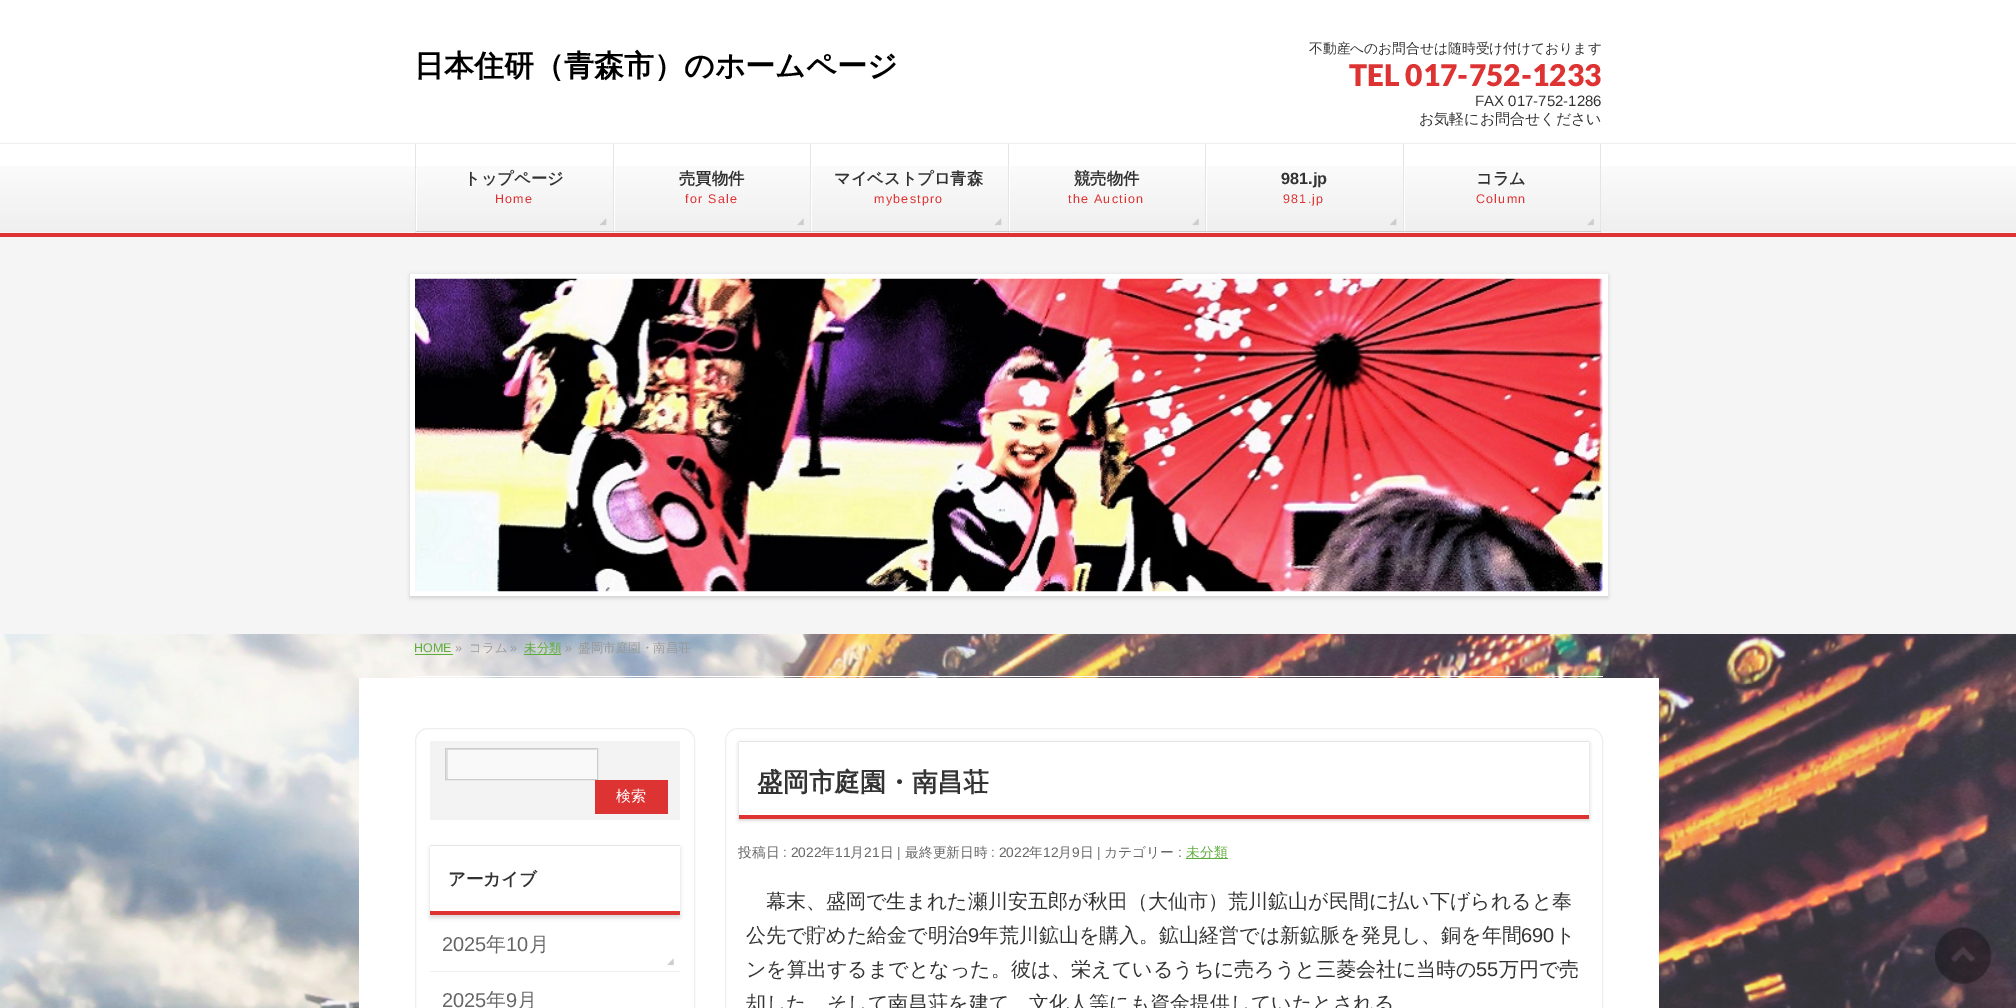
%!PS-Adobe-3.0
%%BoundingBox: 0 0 2016 1008
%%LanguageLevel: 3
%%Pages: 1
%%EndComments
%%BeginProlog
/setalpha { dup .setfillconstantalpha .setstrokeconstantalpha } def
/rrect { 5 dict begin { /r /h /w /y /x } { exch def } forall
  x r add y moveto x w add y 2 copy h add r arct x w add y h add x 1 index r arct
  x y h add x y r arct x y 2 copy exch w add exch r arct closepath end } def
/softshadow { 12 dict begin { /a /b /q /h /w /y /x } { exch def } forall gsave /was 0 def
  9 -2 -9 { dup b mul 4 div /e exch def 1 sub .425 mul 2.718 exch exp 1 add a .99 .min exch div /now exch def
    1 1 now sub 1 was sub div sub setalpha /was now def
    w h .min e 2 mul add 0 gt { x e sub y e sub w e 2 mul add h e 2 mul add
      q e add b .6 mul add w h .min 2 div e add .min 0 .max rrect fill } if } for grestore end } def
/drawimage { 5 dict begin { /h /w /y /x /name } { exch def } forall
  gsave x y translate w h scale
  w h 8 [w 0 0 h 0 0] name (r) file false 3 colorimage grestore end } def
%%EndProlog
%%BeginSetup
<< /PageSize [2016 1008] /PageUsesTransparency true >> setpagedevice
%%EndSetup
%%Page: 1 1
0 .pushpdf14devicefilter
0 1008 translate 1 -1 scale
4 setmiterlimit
1 setgray
0 0 2016 1008 rectfill
(images/1.raw) 0 634 2016 374 drawimage
(images/2.raw) 0 166 2016 67 drawimage
0.933 setgray
0 143 2016 1 rectfill
0.867 0.2 0.2 setrgbcolor
0 233 2016 4 rectfill
0.898 setgray
415 144 1 89 rectfill
1 setgray
416 166 1 67 rectfill
(images/3.raw) 600 218 7 8 drawimage
0.898 setgray
613 144 1 89 rectfill
0.8 setgray
416 231 198 1 rectfill
1 setgray
614 166 1 67 rectfill
(images/4.raw) 797 218 7 8 drawimage
0.898 setgray
810 144 1 89 rectfill
0.8 setgray
614 231 197 1 rectfill
1 setgray
811 166 1 67 rectfill
(images/5.raw) 995 218 7 8 drawimage
0.898 setgray
1008 144 1 89 rectfill
0.8 setgray
811 231 198 1 rectfill
1 setgray
1009 166 1 67 rectfill
(images/4.raw) 1192 218 7 8 drawimage
0.898 setgray
1205 144 1 89 rectfill
0.8 setgray
1009 231 197 1 rectfill
1 setgray
1206 166 1 67 rectfill
(images/3.raw) 1390 218 7 8 drawimage
0.898 setgray
1403 144 1 89 rectfill
0.8 setgray
1206 231 198 1 rectfill
1 setgray
1404 166 1 67 rectfill
(images/4.raw) 1587 218 7 8 drawimage
0.898 setgray
1600 144 1 89 rectfill
0.8 setgray
1404 231 197 1 rectfill
0.961 setgray
0 237 2016 397 rectfill
0 setgray
410 275 1198 323 0 2 0.15 softshadow
1 setgray
410 274 1198 322 rectfill
(images/6.raw) 415 278 1188 314 drawimage
415 676 1188 1 rectfill
0.369 0.678 0.235 setrgbcolor
415 654 38 1 rectfill
524 654 37 1 rectfill
1 setgray
359 678 1300 330 rectfill
0.933 setgray
415.5 728.5 279 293 12.5 rrect stroke
0.953 setgray
430 741 250 79 rectfill
0.976 setgray
448 749 149 30 rectfill
gsave
446 749 150 30 rectclip
0.878 setgray
newpath 427 729 moveto 683 729 lineto 689 729 694 734 694 740 curveto 694 902 lineto 416 902 lineto 416 740 lineto 416 734 421 729 427 729 curveto closepath 448 750 moveto 448 780 lineto 598 780 lineto 598 750 lineto closepath eofill
grestore
0.8 setgray
445.5 748.5 152 31 rectstroke
0.867 0.2 0.2 setrgbcolor
595 780 73 34 rectfill
gsave
newpath 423 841 moveto 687 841 lineto 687 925 lineto 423 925 lineto closepath 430 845 moveto 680 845 lineto 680 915 lineto 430 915 lineto closepath eoclip newpath
0 setgray
430 848 250 70 0 2 0.15 softshadow
grestore
0.898 setgray
430 845 250 1 rectfill
0.867 0.2 0.2 setrgbcolor
430 911 250 4 rectfill
0.933 setgray
430 971 250 1 rectfill
(images/7.raw) 667 958 7 8 drawimage
725.5 728.5 877 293 12.5 rrect stroke
gsave
newpath 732 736 moveto 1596 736 lineto 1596 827 lineto 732 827 lineto closepath 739 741 moveto 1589 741 lineto 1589 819 lineto 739 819 lineto closepath eoclip newpath
0 setgray
739 743 850 77 0 2 0.2 softshadow
grestore
0.898 setgray
739 741 850 1 rectfill
0.867 0.2 0.2 setrgbcolor
739 815 850 4 rectfill
0.369 0.678 0.235 setrgbcolor
1186 858 42 1 rectfill
(images/8.raw) 1935 927 57 57 drawimage
/WenQuanYiZenHei-Bold [30 0 0 -30 0 0] selectfont
0 setgray
414 76 moveto (日本住研（青森市）のホームページ) show
/WenQuanYiZenHei-Medium [13.75 0 0 -13.75 0 0] selectfont
0.2 setgray
1309 53 moveto (不動産へのお問合せは随時受け付けております) show
/Lato-Black [30 0 0 -30 0 0] selectfont
0.867 0.2 0.2 setrgbcolor
1349 86 moveto (TEL 017-752-1233) show
/LiberationSans-Regular [15 0 0 -15 0 0] selectfont
0.2 setgray
1475 106 moveto (FAX 017-752-1286) show
/WenQuanYiZenHei-Medium [15 0 0 -15 0 0] selectfont
1419 124 moveto (お気軽にお問合せください) show
/WenQuanYiZenHei-Bold [16.25 0 0 -16.25 0 0] selectfont
464 184 moveto (トップページ) show
/LiberationSans-Regular [12.5 0 0 -12.5 0 0] selectfont
0.867 0.2 0.2 setrgbcolor
495 203 moveto 1.25 0 (Home) ashow
/WenQuanYiZenHei-Bold [16.25 0 0 -16.25 0 0] selectfont
0.2 setgray
679 184 moveto (売買物件) show
/LiberationSans-Regular [12.5 0 0 -12.5 0 0] selectfont
0.867 0.2 0.2 setrgbcolor
685 203 moveto 1.25 0 (for Sale) ashow
/WenQuanYiZenHei-Bold [16.25 0 0 -16.25 0 0] selectfont
0.2 setgray
834 184 moveto (マイベストプロ青森) show
/LiberationSans-Regular [12.5 0 0 -12.5 0 0] selectfont
0.867 0.2 0.2 setrgbcolor
874 203 moveto 1.25 0 (mybestpro) ashow
/WenQuanYiZenHei-Bold [16.25 0 0 -16.25 0 0] selectfont
0.2 setgray
1074 184 moveto (競売物件) show
/LiberationSans-Regular [12.5 0 0 -12.5 0 0] selectfont
0.867 0.2 0.2 setrgbcolor
1068 203 moveto 1.25 0 (the Auction) ashow
/LiberationSans-Bold [16.25 0 0 -16.25 0 0] selectfont
0.2 setgray
1281 184 moveto (981.jp) show
/LiberationSans-Regular [12.5 0 0 -12.5 0 0] selectfont
0.867 0.2 0.2 setrgbcolor
1283 203 moveto 1.25 0 (981.jp) ashow
/WenQuanYiZenHei-Bold [16.25 0 0 -16.25 0 0] selectfont
0.2 setgray
1476 184 moveto (コラム) show
/LiberationSans-Regular [12.5 0 0 -12.5 0 0] selectfont
0.867 0.2 0.2 setrgbcolor
1476 203 moveto 1.25 0 (Column) ashow
0.369 0.678 0.235 setrgbcolor
414 652 moveto (HOME) show
0.6 setgray
455 652 moveto (») show
/WenQuanYiZenHei-Medium [12.5 0 0 -12.5 0 0] selectfont
469 652 moveto (コラム) show
/LiberationSans-Regular [12.5 0 0 -12.5 0 0] selectfont
510 652 moveto (») show
/WenQuanYiZenHei-Medium [12.5 0 0 -12.5 0 0] selectfont
0.369 0.678 0.235 setrgbcolor
524 652 moveto (未分類) show
/LiberationSans-Regular [12.5 0 0 -12.5 0 0] selectfont
0.6 setgray
565 652 moveto (») show
/WenQuanYiZenHei-Medium [12.5 0 0 -12.5 0 0] selectfont
578 652 moveto (盛岡市庭園・南昌荘) show
/WenQuanYiZenHei-Medium [15 0 0 -15 0 0] selectfont
1 setgray
616 801 moveto (検索) show
/WenQuanYiZenHei-Bold [17.5 0 0 -17.5 0 0] selectfont
0.2 setgray
448 885 moveto (アーカイブ) show
/LiberationSans-Regular [20 0 0 -20 0 0] selectfont
0.4 setgray
442 951 moveto (2025) show
/WenQuanYiZenHei-Medium [20 0 0 -20 0 0] selectfont
486 951 moveto (年) show
/LiberationSans-Regular [20 0 0 -20 0 0] selectfont
506 951 moveto (10) show
/WenQuanYiZenHei-Medium [20 0 0 -20 0 0] selectfont
529 951 moveto (月) show
/LiberationSans-Regular [20 0 0 -20 0 0] selectfont
442 1007 moveto (2025) show
/WenQuanYiZenHei-Medium [20 0 0 -20 0 0] selectfont
486 1007 moveto (年) show
/LiberationSans-Regular [20 0 0 -20 0 0] selectfont
506 1007 moveto (9) show
/WenQuanYiZenHei-Medium [20 0 0 -20 0 0] selectfont
517 1007 moveto (月) show
/WenQuanYiZenHei-Bold [25.75 0 0 -25.75 0 0] selectfont
0.2 setgray
757 791 moveto (盛岡市庭園・南昌荘) show
/WenQuanYiZenHei-Medium [13.75 0 0 -13.75 0 0] selectfont
0.4 setgray
738 857 moveto (投稿日) show
/LiberationSans-Regular [13.75 0 0 -13.75 0 0] selectfont
783 857 moveto (: 2022) show
/WenQuanYiZenHei-Medium [13.75 0 0 -13.75 0 0] selectfont
821 857 moveto (年) show
/LiberationSans-Regular [13.75 0 0 -13.75 0 0] selectfont
835 857 moveto (11) show
/WenQuanYiZenHei-Medium [13.75 0 0 -13.75 0 0] selectfont
850 857 moveto (月) show
/LiberationSans-Regular [13.75 0 0 -13.75 0 0] selectfont
864 857 moveto (21) show
/WenQuanYiZenHei-Medium [13.75 0 0 -13.75 0 0] selectfont
880 857 moveto (日) show
/LiberationSans-Regular [13.75 0 0 -13.75 0 0] selectfont
897 857 moveto (|) show
/WenQuanYiZenHei-Medium [13.75 0 0 -13.75 0 0] selectfont
905 857 moveto (最終更新日時) show
/LiberationSans-Regular [13.75 0 0 -13.75 0 0] selectfont
991 857 moveto (: 2022) show
/WenQuanYiZenHei-Medium [13.75 0 0 -13.75 0 0] selectfont
1029 857 moveto (年) show
/LiberationSans-Regular [13.75 0 0 -13.75 0 0] selectfont
1043 857 moveto (12) show
/WenQuanYiZenHei-Medium [13.75 0 0 -13.75 0 0] selectfont
1058 857 moveto (月) show
/LiberationSans-Regular [13.75 0 0 -13.75 0 0] selectfont
1072 857 moveto (9) show
/WenQuanYiZenHei-Medium [13.75 0 0 -13.75 0 0] selectfont
1080 857 moveto (日) show
/LiberationSans-Regular [13.75 0 0 -13.75 0 0] selectfont
1097 857 moveto (|) show
/WenQuanYiZenHei-Medium [13.75 0 0 -13.75 0 0] selectfont
1104 857 moveto (カテゴリー) show
/LiberationSans-Regular [13.75 0 0 -13.75 0 0] selectfont
1178 857 moveto (:) show
/WenQuanYiZenHei-Medium [13.75 0 0 -13.75 0 0] selectfont
0.369 0.678 0.235 setrgbcolor
1186 857 moveto (未分類) show
/WenQuanYiZenHei-Medium [20 0 0 -20 0 0] selectfont
0.2 setgray
766 908 moveto (幕末、盛岡で生まれた瀬川安五郎が秋田（大仙市）荒川鉱山が民間に払い下げられると奉) show
746 942 moveto (公先で貯めた給金で明治) show
/LiberationSans-Regular [20 0 0 -20 0 0] selectfont
968 942 moveto (9) show
/WenQuanYiZenHei-Medium [20 0 0 -20 0 0] selectfont
979 942 moveto (年荒川鉱山を購入。鉱山経営では新鉱脈を発見し、銅を年間) show
/LiberationSans-Regular [20 0 0 -20 0 0] selectfont
1521 942 moveto (690) show
/WenQuanYiZenHei-Medium [20 0 0 -20 0 0] selectfont
1555 942 moveto (ト) show
746 976 moveto (ンを算出するまでとなった。彼は、栄えているうちに売ろうと三菱会社に当時の) show
/LiberationSans-Regular [20 0 0 -20 0 0] selectfont
1476 976 moveto (55) show
/WenQuanYiZenHei-Medium [20 0 0 -20 0 0] selectfont
1499 976 moveto (万円で売) show
746 1010 moveto (却した。そして南昌荘を建て、文化人等にも資金提供していたとされる) show
.poppdf14devicefilter showpage
%%EOF
